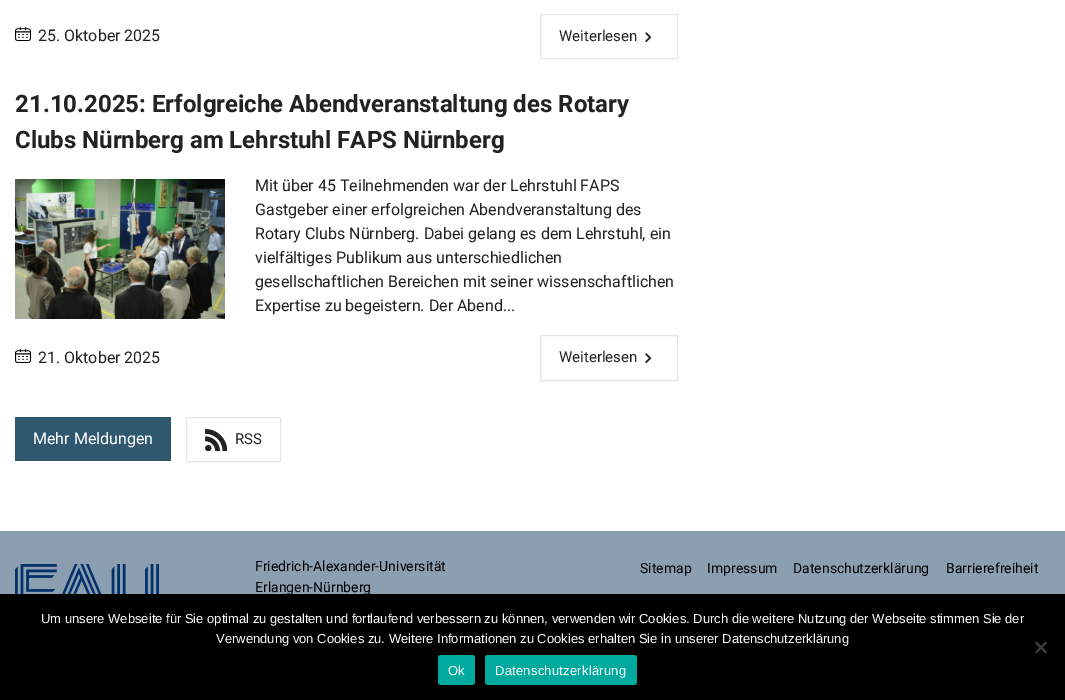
%!PS-Adobe-3.0
%%BoundingBox: 0 0 1065 700
%%LanguageLevel: 3
%%Pages: 1
%%EndComments
%%BeginProlog
/rrect { 5 dict begin { /r /h /w /y /x } { exch def } forall
  x r add y moveto x w add y 2 copy h add r arct x w add y h add x 1 index r arct
  x y h add x y r arct x y 2 copy exch w add exch r arct closepath end } def
/drawimage { 5 dict begin { /h /w /y /x /name } { exch def } forall
  gsave x y translate w h scale
  w h 8 [w 0 0 h 0 0] name (r) file false 3 colorimage grestore end } def
%%EndProlog
%%BeginSetup
<< /PageSize [1065 700] >> setpagedevice
%%EndSetup
%%Page: 1 1
0 700 translate 1 -1 scale
4 setmiterlimit
1 setgray
0 0 1065 700 rectfill
(images/1.raw) 15 27 16 14 drawimage
0.875 0.902 0.925 setrgbcolor
540.5 14.5 137 44 rectstroke
(images/2.raw) 645 32 7 10 drawimage
(images/3.raw) 15 179 210 140 drawimage
(images/1.raw) 15 349 16 14 drawimage
540.5 335.5 137 45 rectstroke
(images/2.raw) 645 353 7 10 drawimage
0.184 0.345 0.431 setrgbcolor
15 417 156 44 rectfill
0.875 0.902 0.925 setrgbcolor
186.5 417.5 94 44 rectstroke
(images/4.raw) 205 429 22 22 drawimage
0.549 0.624 0.694 setrgbcolor
0 531 1065 63 rectfill
(images/5.raw) 15 564 144 30 drawimage
0 setgray
0 594 1065 106 rectfill
0.251 setgray
newpath 1045.5 641.5 moveto 1047 643 lineto 1036.5 653.5 lineto 1035 652 lineto closepath fill
newpath 1035 643 moveto 1036.5 641.5 lineto 1047 652 lineto 1045.5 653.5 lineto closepath fill
0 0.663 0.616 setrgbcolor
438 655 37 30 3 rrect fill
485 655 152 30 3 rrect fill
/Roboto-Regular [16 0 0 -16 0 0] selectfont
0.133 setgray
38 41 moveto (25. Oktober 2025) show
/Roboto-Regular [15 0 0 -15 0 0] selectfont
559 41 moveto (Weiterlesen) show
/Roboto-Bold [24 0 0 -24 0 0] selectfont
15 112 moveto (21.10.2025: Erfolgreiche Abendveranstaltung des Rotary) show
15 148 moveto (Clubs Nürnberg am Lehrstuhl FAPS Nürnberg) show
/Roboto-Regular [16 0 0 -16 0 0] selectfont
255 191 moveto (Mit über 45 Teilnehmenden war der Lehrstuhl FAPS) show
255 215 moveto (Gastgeber einer erfolgreichen Abendveranstaltung des) show
255 239 moveto (Rotary Clubs Nürnberg. Dabei gelang es dem Lehrstuhl, ein) show
255 263 moveto (vielfältiges Publikum aus unterschiedlichen) show
255 287 moveto (gesellschaftlichen Bereichen mit seiner wissenschaftlichen) show
255 311 moveto (Expertise zu begeistern. Der Abend...) show
38 363 moveto (21. Oktober 2025) show
/Roboto-Regular [15 0 0 -15 0 0] selectfont
559 362 moveto (Weiterlesen) show
/Roboto-Regular [16 0 0 -16 0 0] selectfont
1 setgray
33 444 moveto (Mehr Meldungen) show
/Roboto-Regular [15 0 0 -15 0 0] selectfont
0.133 setgray
235 444 moveto (RSS) show
/Roboto-Regular [14 0 0 -14 0 0] selectfont
0 setgray
255 571 moveto (Friedrich-Alexander-Universität) show
255 592 moveto (Erlangen-Nürnberg) show
640 573 moveto (Sitemap) show
707 573 moveto (Impressum) show
793 573 moveto (Datenschutzerklärung) show
946 573 moveto (Barrierefreiheit) show
/LiberationSans-Regular [13 0 0 -13 0 0] selectfont
1 setgray
41 623 moveto (Um unsere Webseite für Sie optimal zu gestalten und fortlaufend verbessern zu können, verwenden wir Cookies. Durch die weitere Nutzung der Webseite stimmen Sie der) show
216 643 moveto (Verwendung von Cookies zu. Weitere Informationen zu Cookies erhalten Sie in unserer Datenschutzerklärung) show
448 675 moveto 0.25 0 (Ok) ashow
495 675 moveto 0.25 0 (Datenschutzerklärung) ashow
showpage
%%EOF
